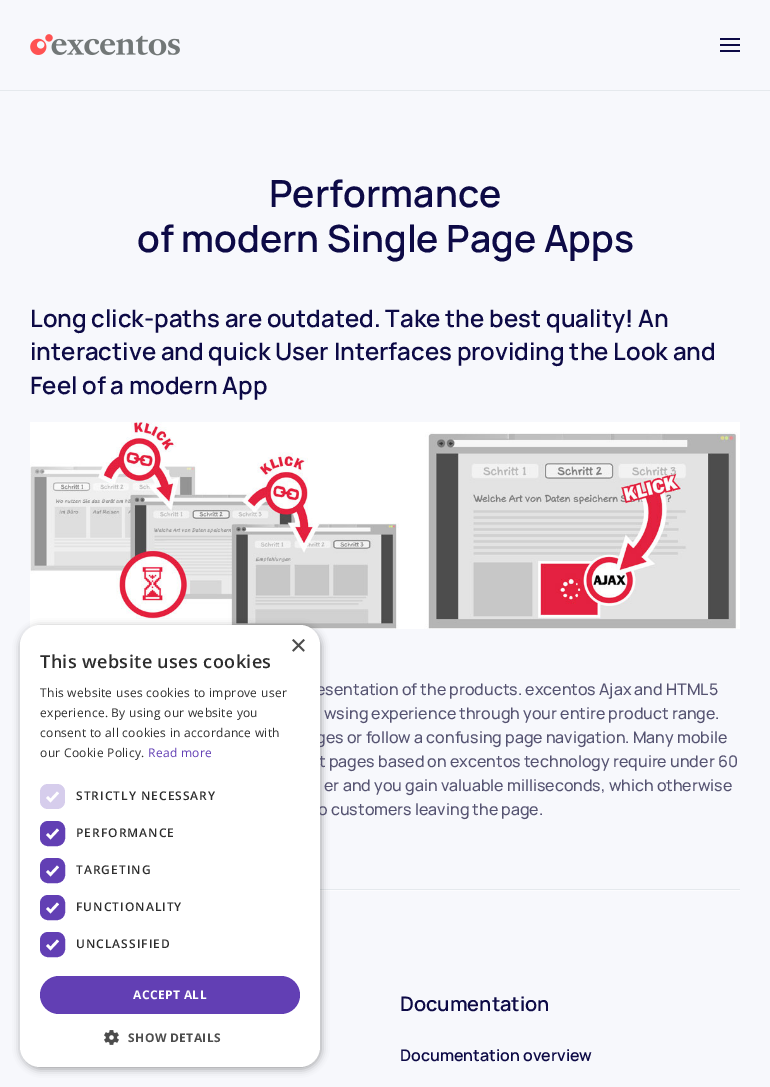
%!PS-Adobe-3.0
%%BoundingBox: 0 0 770 1087
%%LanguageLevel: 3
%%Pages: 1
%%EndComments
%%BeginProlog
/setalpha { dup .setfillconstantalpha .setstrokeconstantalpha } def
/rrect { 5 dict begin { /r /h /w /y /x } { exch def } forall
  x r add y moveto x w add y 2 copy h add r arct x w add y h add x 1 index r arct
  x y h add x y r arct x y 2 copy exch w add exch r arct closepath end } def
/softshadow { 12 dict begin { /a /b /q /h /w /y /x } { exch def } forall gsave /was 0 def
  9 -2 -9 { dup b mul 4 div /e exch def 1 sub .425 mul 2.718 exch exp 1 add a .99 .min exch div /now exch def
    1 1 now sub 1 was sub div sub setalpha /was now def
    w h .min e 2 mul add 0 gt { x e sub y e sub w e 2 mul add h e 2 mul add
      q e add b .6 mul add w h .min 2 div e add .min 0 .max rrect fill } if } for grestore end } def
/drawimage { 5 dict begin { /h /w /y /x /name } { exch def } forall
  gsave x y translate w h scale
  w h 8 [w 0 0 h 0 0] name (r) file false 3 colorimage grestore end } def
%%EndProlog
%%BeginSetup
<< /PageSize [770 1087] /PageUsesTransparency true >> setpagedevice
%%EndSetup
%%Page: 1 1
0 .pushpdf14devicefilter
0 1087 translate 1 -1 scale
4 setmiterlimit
0.969 0.973 0.988 setrgbcolor
0 0 770 1087 rectfill
0.898 0.914 0.929 setrgbcolor
0 90 770 1 rectfill
(images/1.raw) 30 34 150 22 drawimage
0.051 0.039 0.275 setrgbcolor
720 38 20 2 rectfill
720 44 20 2 rectfill
720 50 20 2 rectfill
(images/2.raw) 30 422 710 207 drawimage
0.988 0.988 0.996 setrgbcolor
320 890 420 1 rectfill
0.898 0.914 0.929 setrgbcolor
320 889 420 1 rectfill
0 setgray
21 627 300 442 20 4 0.35 softshadow
/Manrope-ExtraLight [37.4 0 0 -37.4 0 0] selectfont
0.051 0.039 0.275 setrgbcolor
269 207 moveto (Performance) show
137 252 moveto (of modern Single Page Apps) show
/Manrope-ExtraLight [24 0 0 -24 0 0] selectfont
30 327 moveto (Long click-paths are outdated. Take the best quality! An) show
30 360 moveto (interactive and quick User Interfaces providing the Look and) show
30 394 moveto (Feel of a modern App) show
/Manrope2-ExtraLight [16 0 0 -16 0 0] selectfont
0.333 0.325 0.443 setrgbcolor
316 695 moveto (esentation of the products. excentos Ajax and HTML5) show
324 719 moveto (wsing experience through your entire product range.) show
316 743 moveto (ges or follow a confusing page navigation. Many mobile) show
319 767 moveto (t pages based on excentos technology require under 60) show
324 791 moveto (er and you gain valuable milliseconds, which otherwise) show
318 815 moveto (o customers leaving the page.) show
/Manrope-ExtraLight [20 0 0 -20 0 0] selectfont
0.051 0.039 0.275 setrgbcolor
400 1011 moveto (Documentation) show
/Manrope-ExtraLight [16 0 0 -16 0 0] selectfont
400 1061 moveto (Documentation overview) show
1 setgray
20 625 300 442 20 rrect fill
/LiberationSans-Regular [29 0 0 -29 0 0] selectfont
0.302 setgray
290 655 moveto (×) show
/OpenSans-SemiBold [18 0 0 -18 0 0] selectfont
0.176 setgray
40 668 moveto 0.4 0 (This website uses cookies) ashow
/OpenSans-Regular [12 0 0 -12 0 0] selectfont
40 697 moveto 0.3 0 (This website uses cookies to improve user) ashow
40 717 moveto 0.3 0 (experience. By using our website you) ashow
40 737 moveto 0.3 0 (consent to all cookies in accordance with) ashow
40 757 moveto 0.3 0 (our Cookie Policy.) ashow
0.384 0.247 0.706 setrgbcolor
148 757 moveto 0.3 0 (Read more) ashow
0.839 0.804 0.925 setrgbcolor
40 784 25 25 8 rrect fill
1 setgray
2.6 setlinewidth
newpath 47 797 moveto 50.5 800.5 lineto 58 792.5 lineto stroke
/OpenSans-SemiBold [12 0 0 -12 0 0] selectfont
0.176 setgray
76 800 moveto 1 0 (STRICTLY NECESSARY) ashow
0.384 0.247 0.706 setrgbcolor
41 822 23 23 7 rrect gsave fill grestore
2 setlinewidth
stroke
1 setgray
2.6 setlinewidth
newpath 47 834 moveto 50.5 837.5 lineto 58 829.5 lineto stroke
0.176 setgray
76 837 moveto 1 0 (PERFORMANCE) ashow
0.384 0.247 0.706 setrgbcolor
41 859 23 23 7 rrect gsave fill grestore
2 setlinewidth
stroke
1 setgray
2.6 setlinewidth
newpath 47 871 moveto 50.5 874.5 lineto 58 866.5 lineto stroke
0.176 setgray
76 874 moveto 1 0 (TARGETING) ashow
0.384 0.247 0.706 setrgbcolor
41 896 23 23 7 rrect gsave fill grestore
2 setlinewidth
stroke
1 setgray
2.6 setlinewidth
newpath 47 908 moveto 50.5 911.5 lineto 58 903.5 lineto stroke
0.176 setgray
76 911 moveto 1 0 (FUNCTIONALITY) ashow
0.384 0.247 0.706 setrgbcolor
41 933 23 23 7 rrect gsave fill grestore
2 setlinewidth
stroke
1 setgray
2.6 setlinewidth
newpath 47 945 moveto 50.5 948.5 lineto 58 940.5 lineto stroke
0.176 setgray
76 948 moveto 1 0 (UNCLASSIFIED) ashow
0.384 0.247 0.706 setrgbcolor
40 976 260 38 19 rrect fill
/OpenSans-Bold [12 0 0 -12 0 0] selectfont
1 setgray
133 999 moveto 0.4 0 (ACCEPT ALL) ashow
(images/3.raw) 104 1030 15 15 drawimage
0.302 setgray
128 1042 moveto 0.4 0 (SHOW DETAILS) ashow
.poppdf14devicefilter showpage
%%EOF
